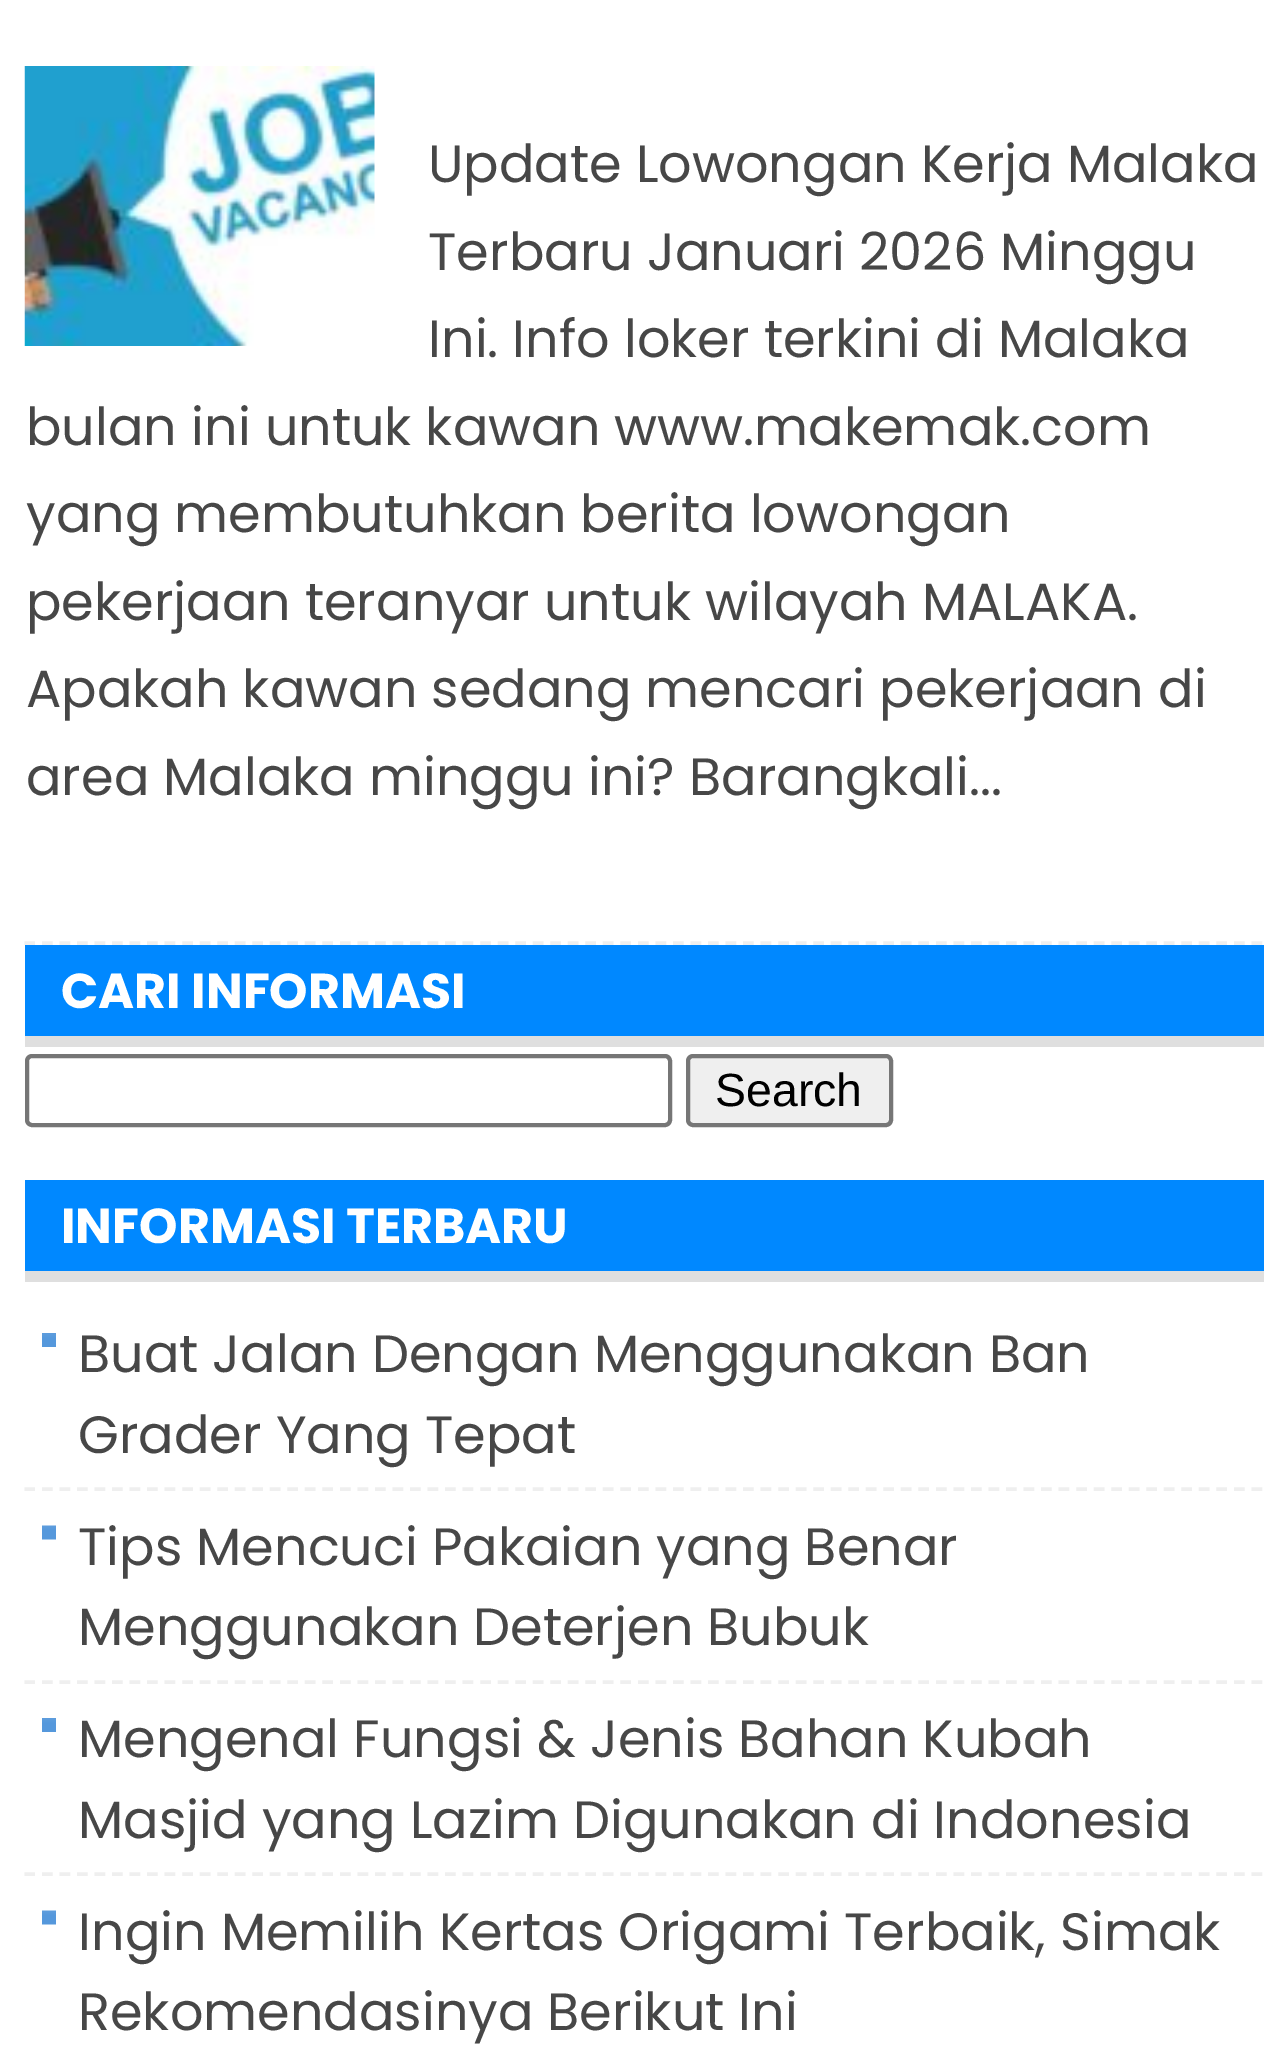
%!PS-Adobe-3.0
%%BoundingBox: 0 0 1287 2050
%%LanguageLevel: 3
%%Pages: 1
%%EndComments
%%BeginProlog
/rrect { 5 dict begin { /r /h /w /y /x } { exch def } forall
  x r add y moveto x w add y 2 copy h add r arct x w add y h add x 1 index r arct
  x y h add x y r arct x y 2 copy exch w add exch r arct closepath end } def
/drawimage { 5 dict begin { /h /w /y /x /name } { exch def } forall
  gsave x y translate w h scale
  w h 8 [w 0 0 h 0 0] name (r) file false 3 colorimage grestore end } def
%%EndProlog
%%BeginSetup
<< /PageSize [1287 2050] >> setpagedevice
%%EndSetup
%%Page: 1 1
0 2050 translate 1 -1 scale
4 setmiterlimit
1 setgray
0 0 1287 2050 rectfill
0.937 setgray
3.5 setlinewidth
[10.5 7.03] 0 setdash
newpath 24.5 943 moveto 1263.5 943 lineto stroke
(images/1.raw) 24 66 351 280 drawimage
0 0.533 1 setrgbcolor
25 945 1239 91 rectfill
0.875 setgray
25 1036 1239 11 rectfill
0.463 setgray
4 setlinewidth
[] 0 setdash
27 1056 643 69 5 rrect stroke
0.937 setgray
688 1056 203 69 5 rrect gsave fill grestore
0.463 setgray
stroke
0 0.533 1 setrgbcolor
25 1180 1239 91 rectfill
0.875 setgray
25 1271 1239 11 rectfill
(images/2.raw) 42 1333 14 14 drawimage
0.937 setgray
3.5 setlinewidth
[10.5 7.03] 0 setdash
newpath 24.5 1489 moveto 1263.5 1489 lineto stroke
(images/3.raw) 42 1525 14 15 drawimage
newpath 24.5 1682 moveto 1263.5 1682 lineto stroke
(images/2.raw) 42 1718 14 14 drawimage
newpath 24.5 1874 moveto 1263.5 1874 lineto stroke
(images/3.raw) 42 1910 14 15 drawimage
/Poppins-Regular [52.5 0 0 -52.5 0 0] selectfont
0.278 setgray
428 182 moveto (Update Lowongan Kerja Malaka) show
428 270 moveto (Terbaru Januari 2026 Minggu) show
428 357 moveto (Ini. Info loker terkini di Malaka) show
26 445 moveto (bulan ini untuk kawan www.makemak.com) show
26 532 moveto (yang membutuhkan berita lowongan) show
26 620 moveto (pekerjaan teranyar untuk wilayah MALAKA.) show
26 707 moveto (Apakah kawan sedang mencari pekerjaan di) show
26 795 moveto (area Malaka minggu ini? Barangkali...) show
/Poppins-Bold [49 0 0 -49 0 0] selectfont
1 setgray
61 1008 moveto (CARI INFORMASI) show
/LiberationSans-Regular [46.5 0 0 -46.5 0 0] selectfont
0 setgray
715 1106 moveto (Search) show
/Poppins-Bold [49 0 0 -49 0 0] selectfont
1 setgray
61 1243 moveto (INFORMASI TERBARU) show
/Poppins-Regular [52.5 0 0 -52.5 0 0] selectfont
0.278 setgray
78 1372 moveto (Buat Jalan Dengan Menggunakan Ban) show
78 1453 moveto (Grader Yang Tepat) show
78 1565 moveto (Tips Mencuci Pakaian yang Benar) show
78 1645 moveto (Menggunakan Deterjen Bubuk) show
78 1757 moveto (Mengenal Fungsi & Jenis Bahan Kubah) show
78 1838 moveto (Masjid yang Lazim Digunakan di Indonesia) show
78 1950 moveto (Ingin Memilih Kertas Origami Terbaik, Simak) show
78 2030 moveto (Rekomendasinya Berikut Ini) show
showpage
%%EOF
